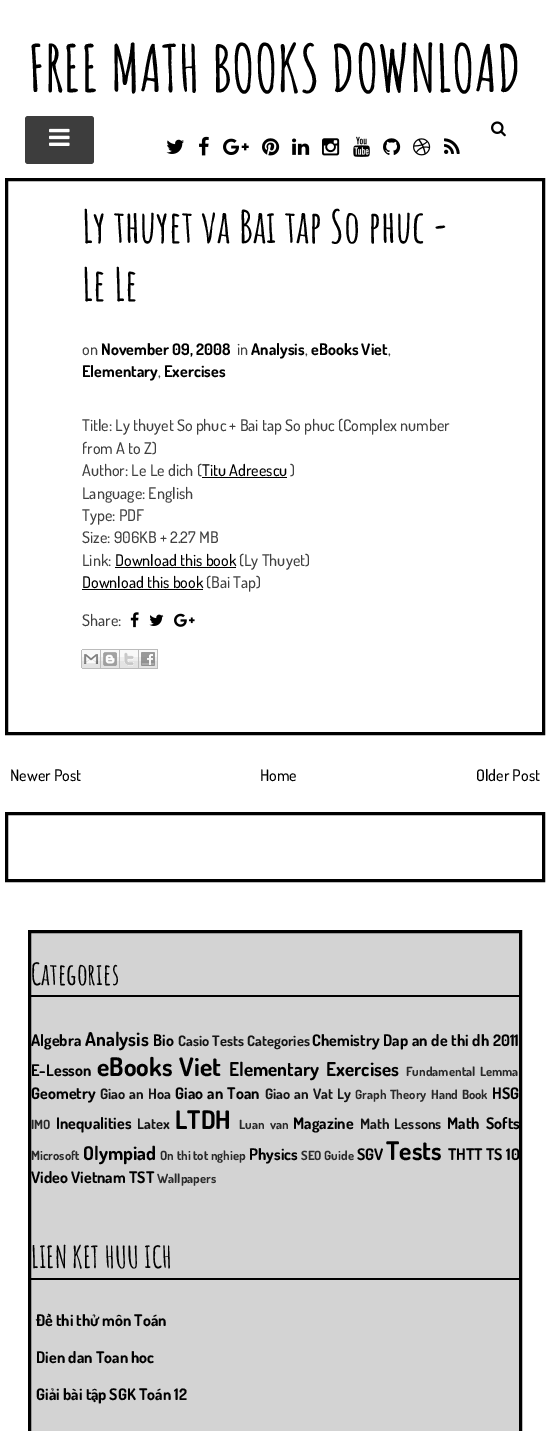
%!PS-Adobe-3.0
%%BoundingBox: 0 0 550 1431
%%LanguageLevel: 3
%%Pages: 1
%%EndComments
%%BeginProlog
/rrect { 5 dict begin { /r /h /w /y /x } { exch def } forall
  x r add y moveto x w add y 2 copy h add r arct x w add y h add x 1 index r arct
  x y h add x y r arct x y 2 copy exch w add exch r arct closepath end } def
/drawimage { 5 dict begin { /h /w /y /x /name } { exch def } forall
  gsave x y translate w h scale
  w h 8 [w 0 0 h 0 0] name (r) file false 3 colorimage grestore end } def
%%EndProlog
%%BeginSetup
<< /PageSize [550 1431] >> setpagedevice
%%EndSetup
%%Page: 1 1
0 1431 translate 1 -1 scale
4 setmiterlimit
1 setgray
0 0 550 1431 rectfill
0.239 setgray
25 116 69 48 3 rrect fill
(images/1.raw) 49 128 21 18 drawimage
(images/2.raw) 491 121 15 16 drawimage
(images/3.raw) 166 139 18 15 drawimage
(images/4.raw) 199 136 10 20 drawimage
(images/5.raw) 223 138 26 17 drawimage
(images/6.raw) 262 138 18 18 drawimage
(images/7.raw) 292 138 18 17 drawimage
(images/8.raw) 322 138 18 18 drawimage
(images/9.raw) 353 136 17 21 drawimage
(images/10.raw) 383 138 18 17 drawimage
(images/11.raw) 413 138 18 18 drawimage
(images/12.raw) 444 138 16 16 drawimage
0 setgray
3 setlinewidth
6.5 179.5 537 554 rectstroke
202 477 85 1 rectfill
115 567 121 1 rectfill
82 589 121 1 rectfill
(images/13.raw) 130 612 9 16 drawimage
(images/14.raw) 149 614 15 12 drawimage
(images/15.raw) 174 613 21 14 drawimage
(images/16.raw) 81 649 20 20 drawimage
(images/17.raw) 101 649 19 20 drawimage
(images/18.raw) 120 649 19 20 drawimage
(images/19.raw) 139 649 19 20 drawimage
6.5 813.5 537 67 rectstroke
0.827 setgray
newpath 29.5 931.5 moveto 520.5 931.5 lineto 520.5 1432.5 lineto 29.5 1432.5 lineto closepath gsave fill grestore
0 setgray
stroke
31 995 488 2 rectfill
31 1278 488 2 rectfill
/AmaticSC-Bold [64 0 0 -64 0 0] selectfont
28 92 moveto (FREE MATH BOOKS DOWNLOAD) show
/AmaticSC-Bold [44.75 0 0 -44.75 0 0] selectfont
82 243 moveto (Ly thuyet va Bai tap So phuc -) show
82 301 moveto (Le Le) show
/Dosis-Medium [16 0 0 -16 0 0] selectfont
0.251 setgray
82 355 moveto (on) show
/Dosis-Bold [16 0 0 -16 0 0] selectfont
0 setgray
101 355 moveto (November 09, 2008) show
/Dosis-Medium [16 0 0 -16 0 0] selectfont
0.251 setgray
237 355 moveto (in) show
/Dosis-Bold [16 0 0 -16 0 0] selectfont
0 setgray
251 355 moveto (Analysis) show
/Dosis-Medium [16 0 0 -16 0 0] selectfont
0.251 setgray
305 355 moveto (,) show
/Dosis-Bold [16 0 0 -16 0 0] selectfont
0 setgray
311 355 moveto (eBooks Viet) show
/Dosis-Medium [16 0 0 -16 0 0] selectfont
0.251 setgray
388 355 moveto (,) show
/Dosis-Bold [16 0 0 -16 0 0] selectfont
0 setgray
82 377 moveto (Elementary) show
/Dosis-Medium [16 0 0 -16 0 0] selectfont
0.251 setgray
158 377 moveto (,) show
/Dosis-Bold [16 0 0 -16 0 0] selectfont
0 setgray
164 377 moveto (Exercises) show
/Dosis-Medium [16 0 0 -16 0 0] selectfont
0.251 setgray
82 431 moveto (Title: Ly thuyet So phuc + Bai tap So phuc \(Complex number) show
82 454 moveto (from A to Z\)) show
82 476 moveto (Author: Le Le dich \() show
0 setgray
202 476 moveto (Titu Adreescu) show
0.251 setgray
290 476 moveto (\)) show
82 499 moveto (Language: English) show
82 521 moveto (Type: PDF) show
82 543 moveto (Size: 906KB + 2.27 MB) show
82 566 moveto (Link:) show
0 setgray
115 566 moveto (Download this book) show
0.251 setgray
239 566 moveto (\(Ly Thuyet\)) show
0 setgray
82 588 moveto (Download this book) show
0.251 setgray
206 588 moveto (\(Bai Tap\)) show
82 626 moveto (Share:) show
0 setgray
10 781 moveto (Newer Post) show
260 781 moveto (Home) show
476 781 moveto (Older Post) show
/AmaticSC-Bold [30 0 0 -30 0 0] selectfont
31 985 moveto (Categories) show
/Dosis-Bold [16 0 0 -16 0 0] selectfont
31 1046 moveto (Algebra) show
/Dosis-Bold [19 0 0 -19 0 0] selectfont
85 1046 moveto (Analysis) show
/Dosis-Bold [16 0 0 -16 0 0] selectfont
153 1046 moveto (Bio) show
/Dosis-Bold [14.5 0 0 -14.5 0 0] selectfont
0.082 setgray
178 1046 moveto (Casio Tests) show
247 1046 moveto (Categories) show
/Dosis-Bold [16 0 0 -16 0 0] selectfont
0 setgray
312 1046 moveto (Chemistry) show
383 1046 moveto 0.5 0 32 (Dap an de thi dh 2011) widthshow
31 1076 moveto (E-Lesson) show
/Dosis-Bold [25.5 0 0 -25.5 0 0] selectfont
97 1076 moveto 2 0 32 (eBooks Viet) widthshow
/Dosis-Bold [19 0 0 -19 0 0] selectfont
229 1076 moveto (Elementary) show
326 1076 moveto (Exercises) show
/Dosis-Bold [12.75 0 0 -12.75 0 0] selectfont
0.165 setgray
406 1076 moveto 2 0 32 (Fundamental Lemma) widthshow
/Dosis-Bold [16 0 0 -16 0 0] selectfont
0 setgray
31 1099 moveto (Geometry) show
/Dosis-Bold [14.5 0 0 -14.5 0 0] selectfont
0.082 setgray
100 1099 moveto 1 0 32 (Giao an Hoa) widthshow
/Dosis-Bold [16 0 0 -16 0 0] selectfont
0 setgray
175 1099 moveto 1 0 32 (Giao an Toan) widthshow
/Dosis-Bold [14.5 0 0 -14.5 0 0] selectfont
0.082 setgray
265 1099 moveto 1 0 32 (Giao an Vat Ly) widthshow
/Dosis-Bold [12.75 0 0 -12.75 0 0] selectfont
0.165 setgray
355 1099 moveto 1 0 32 (Graph Theory) widthshow
431 1099 moveto 1 0 32 (Hand Book) widthshow
/Dosis-Bold [16 0 0 -16 0 0] selectfont
0 setgray
492 1099 moveto (HSG) show
/Dosis-Bold [12.75 0 0 -12.75 0 0] selectfont
0.165 setgray
31 1129 moveto (IMO) show
/Dosis-Bold [16 0 0 -16 0 0] selectfont
0 setgray
56 1129 moveto (Inequalities) show
/Dosis-Bold [14.5 0 0 -14.5 0 0] selectfont
0.082 setgray
137 1129 moveto (Latex) show
/Dosis-Bold [25.5 0 0 -25.5 0 0] selectfont
0 setgray
175 1129 moveto (LTDH) show
/Dosis-Bold [12.75 0 0 -12.75 0 0] selectfont
0.165 setgray
239 1129 moveto 3 0 32 (Luan van) widthshow
/Dosis-Bold [16 0 0 -16 0 0] selectfont
0 setgray
293 1129 moveto (Magazine) show
/Dosis-Bold [14.5 0 0 -14.5 0 0] selectfont
0.082 setgray
360 1129 moveto 2 0 32 (Math Lessons) widthshow
/Dosis-Bold [16 0 0 -16 0 0] selectfont
0 setgray
447 1129 moveto 3 0 32 (Math Softs) widthshow
/Dosis-Bold [12.75 0 0 -12.75 0 0] selectfont
0.165 setgray
31 1160 moveto (Microsoft) show
/Dosis-Bold [19 0 0 -19 0 0] selectfont
0 setgray
83 1160 moveto (Olympiad) show
/Dosis-Bold [12.75 0 0 -12.75 0 0] selectfont
0.165 setgray
160 1160 moveto (On thi tot nghiep) show
/Dosis-Bold [16 0 0 -16 0 0] selectfont
0 setgray
249 1160 moveto (Physics) show
/Dosis-Bold [12.75 0 0 -12.75 0 0] selectfont
0.165 setgray
301 1160 moveto (SEO Guide) show
/Dosis-Bold [16 0 0 -16 0 0] selectfont
0 setgray
357 1160 moveto (SGV) show
/Dosis-Bold [25.5 0 0 -25.5 0 0] selectfont
386 1160 moveto (Tests) show
/Dosis-Bold [16 0 0 -16 0 0] selectfont
448 1160 moveto (THTT TS 10) show
31 1183 moveto (Video Vietnam TST) show
/Dosis-Bold [12.75 0 0 -12.75 0 0] selectfont
0.165 setgray
157 1183 moveto (Wallpapers) show
/AmaticSC-Bold [30 0 0 -30 0 0] selectfont
0 setgray
31 1268 moveto (LIEN KET HUU ICH) show
/Dosis-Bold [16 0 0 -16 0 0] selectfont
36 1326 moveto (Đề thi thử môn Toán) show
36 1363 moveto (Dien dan Toan hoc) show
36 1400 moveto (Giải bài tập SGK Toán 12) show
showpage
%%EOF
